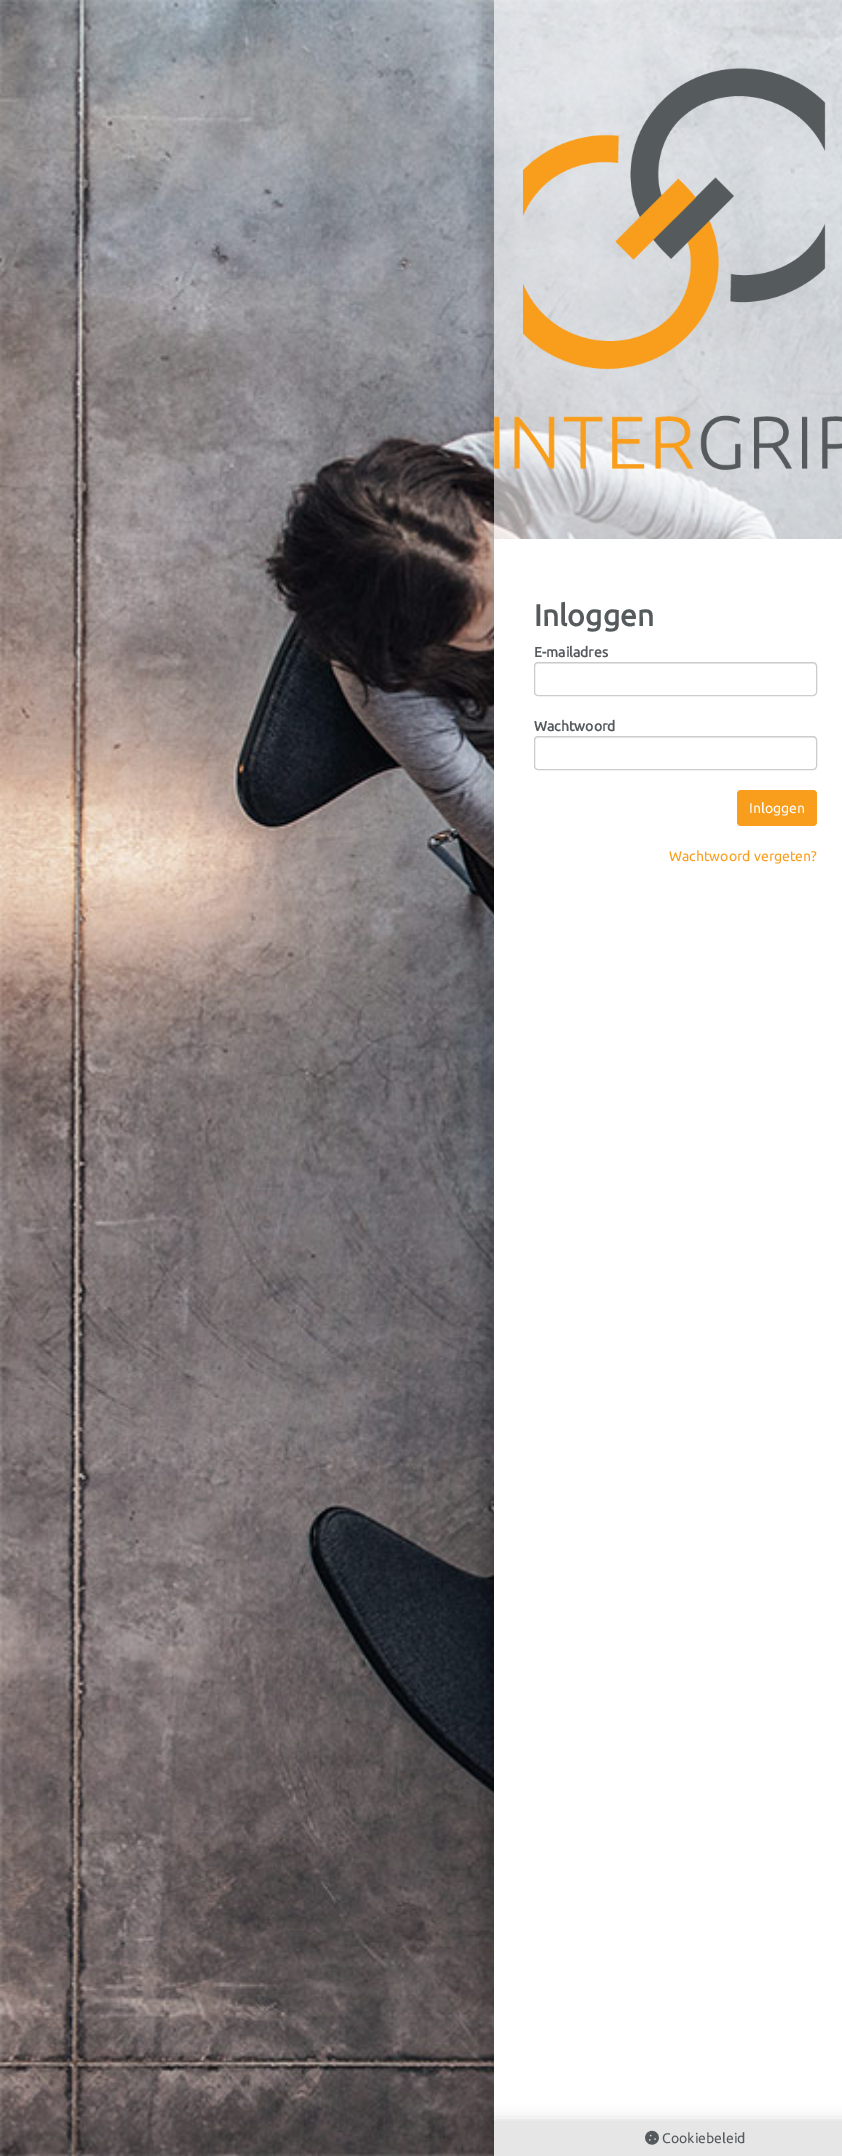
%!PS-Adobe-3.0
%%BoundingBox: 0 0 842 2156
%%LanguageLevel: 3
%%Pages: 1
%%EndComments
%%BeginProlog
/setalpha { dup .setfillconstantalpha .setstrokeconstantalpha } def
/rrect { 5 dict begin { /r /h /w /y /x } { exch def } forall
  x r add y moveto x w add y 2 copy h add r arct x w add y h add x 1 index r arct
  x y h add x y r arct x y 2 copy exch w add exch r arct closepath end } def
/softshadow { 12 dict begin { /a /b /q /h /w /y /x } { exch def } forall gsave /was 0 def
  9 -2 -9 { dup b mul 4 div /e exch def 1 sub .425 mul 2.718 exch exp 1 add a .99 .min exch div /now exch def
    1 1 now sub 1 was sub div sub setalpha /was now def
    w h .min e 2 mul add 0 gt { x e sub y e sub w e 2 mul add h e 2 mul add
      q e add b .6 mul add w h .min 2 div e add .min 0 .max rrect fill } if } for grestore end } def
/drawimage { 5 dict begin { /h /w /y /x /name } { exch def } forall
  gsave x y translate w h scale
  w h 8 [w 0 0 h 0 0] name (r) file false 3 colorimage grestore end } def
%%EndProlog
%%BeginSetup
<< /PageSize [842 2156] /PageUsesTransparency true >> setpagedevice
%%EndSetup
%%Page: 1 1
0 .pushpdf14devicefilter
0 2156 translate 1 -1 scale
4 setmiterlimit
1 setgray
0 0 842 2156 rectfill
(images/1.raw) 0 0 842 2156 drawimage
gsave
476 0 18 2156 rectclip
0 setgray
484 0 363 2156 0 7.5 0.15 softshadow
grestore
0.6 setalpha
494 0 348 539 rectfill
1 setalpha
(images/2.raw) 494 67 348 403 drawimage
494 539 348 1582 rectfill
0.925 setgray
newpath 538 664 moveto 813 664 lineto 815 664 816 665 816 667 curveto 816 666 lineto 816 664 815 663 813 663 curveto 538 663 lineto 536 663 535 664 535 666 curveto 535 667 lineto 535 665 536 664 538 664 curveto closepath fill
0.8 setgray
534.5 662.5 282 33 3.5 rrect stroke
0.925 setgray
newpath 538 738 moveto 813 738 lineto 815 738 816 739 816 741 curveto 816 740 lineto 816 738 815 737 813 737 curveto 538 737 lineto 536 737 535 738 535 740 curveto 535 741 lineto 535 739 536 738 538 738 curveto closepath fill
0.8 setgray
534.5 736.5 282 33 3.5 rrect stroke
0.976 0.616 0.11 setrgbcolor
737 790 80 36 4 rrect fill
0 setgray
494 2121 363 35 0 7.5 0.15 softshadow
0.902 setgray
494 2121 348 35 rectfill
(images/3.raw) 645 2130 14 15 drawimage
/Ubuntu-Bold [30 0 0 -30 0 0] selectfont
0.333 0.353 0.365 setrgbcolor
534 626 moveto (Inloggen) show
/Ubuntu-Bold [14 0 0 -14 0 0] selectfont
534 657 moveto (E-mailadres) show
534 731 moveto (Wachtwoord) show
/Ubuntu-Regular [14 0 0 -14 0 0] selectfont
1 setgray
749 813 moveto (Inloggen) show
0.976 0.616 0.11 setrgbcolor
669 861 moveto (Wachtwoord vergeten?) show
0.333 0.353 0.365 setrgbcolor
662 2143 moveto (Cookiebeleid) show
.poppdf14devicefilter showpage
%%EOF
